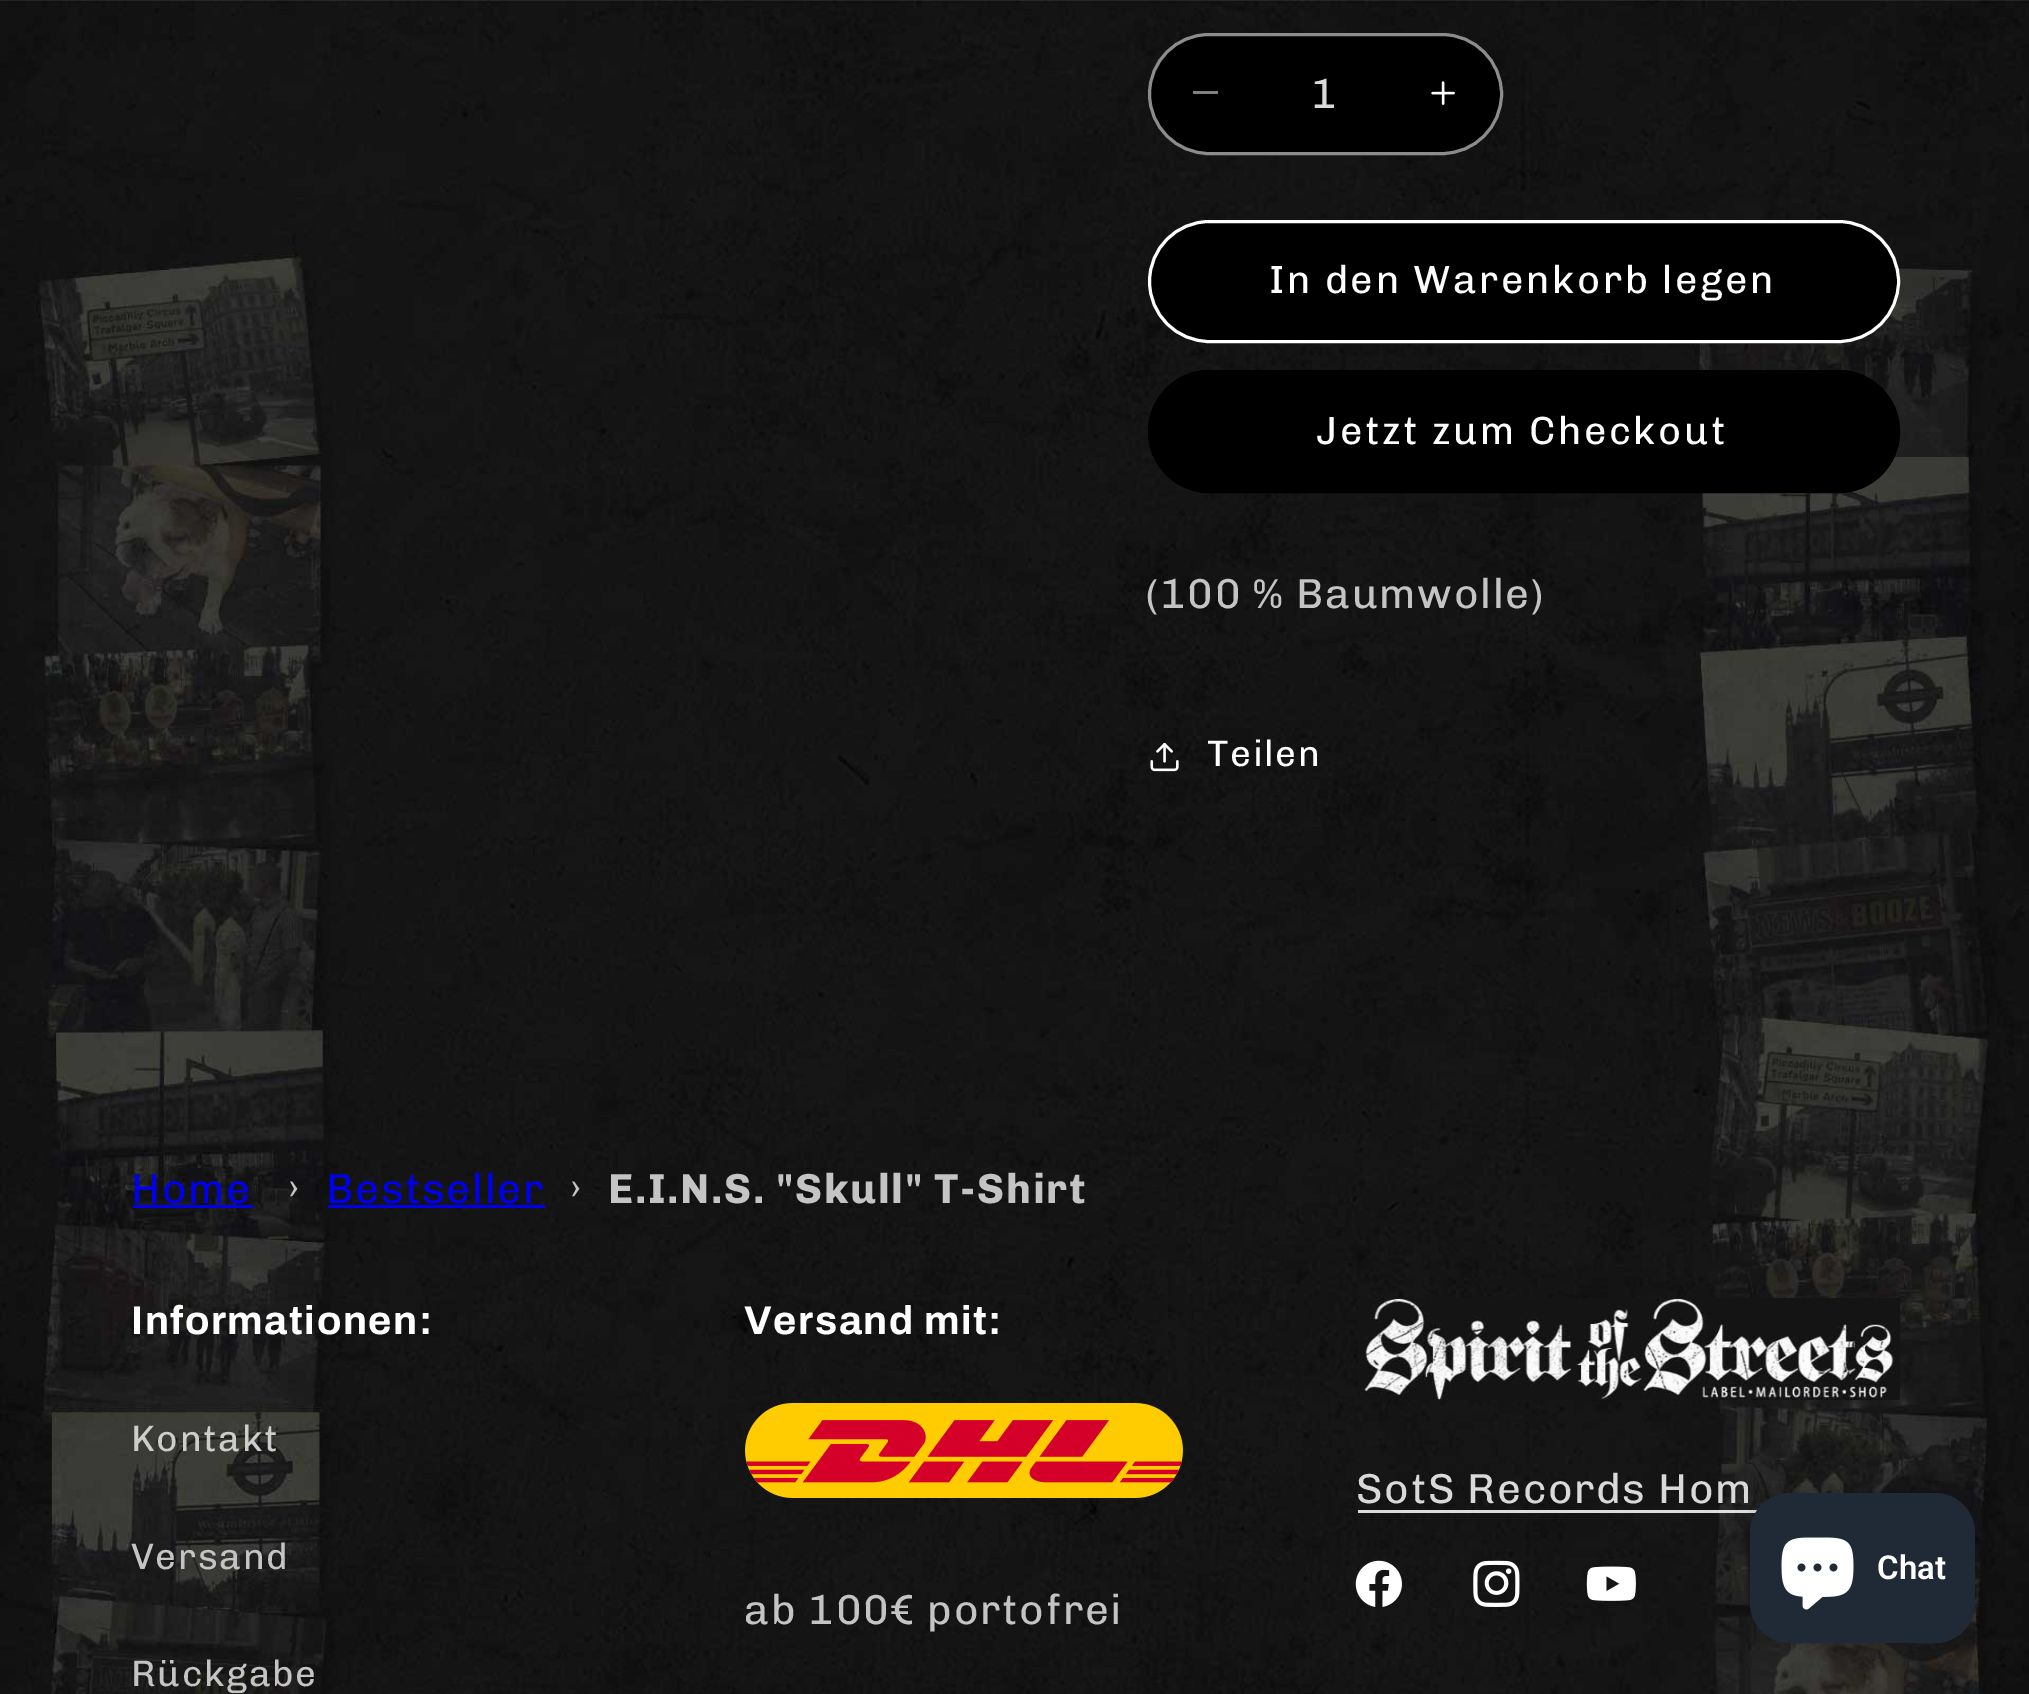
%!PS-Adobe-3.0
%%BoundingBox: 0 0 2029 1694
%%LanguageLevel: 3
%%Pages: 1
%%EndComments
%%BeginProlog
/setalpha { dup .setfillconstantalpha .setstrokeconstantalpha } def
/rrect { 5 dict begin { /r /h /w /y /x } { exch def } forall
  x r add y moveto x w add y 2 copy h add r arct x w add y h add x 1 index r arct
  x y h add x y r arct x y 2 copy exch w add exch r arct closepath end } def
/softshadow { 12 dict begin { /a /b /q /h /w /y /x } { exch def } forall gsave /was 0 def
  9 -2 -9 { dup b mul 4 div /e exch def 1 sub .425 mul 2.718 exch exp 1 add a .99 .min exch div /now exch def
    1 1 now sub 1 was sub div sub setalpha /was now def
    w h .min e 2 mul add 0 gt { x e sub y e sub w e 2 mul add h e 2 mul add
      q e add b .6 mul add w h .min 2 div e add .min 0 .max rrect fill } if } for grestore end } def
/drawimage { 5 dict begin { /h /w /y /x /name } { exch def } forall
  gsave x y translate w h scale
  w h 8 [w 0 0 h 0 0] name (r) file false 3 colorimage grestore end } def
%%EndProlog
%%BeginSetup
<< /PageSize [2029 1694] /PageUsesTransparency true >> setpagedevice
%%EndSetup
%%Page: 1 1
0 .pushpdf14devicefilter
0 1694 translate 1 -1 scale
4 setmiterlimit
1 setgray
0 0 2029 1694 rectfill
(images/1.raw) 0 0 2029 1694 drawimage
0.08 setalpha
0 0 2029 1 rectfill
1 setalpha
0 setgray
1148 33 355 122 61 rrect fill
0.502 setgray
1193 91 25 3 rectfill
(images/2.raw) 1431 81 24 24 drawimage
0.55 setalpha
1 setgray
3 setlinewidth
1149.5 34.5 352 119 59.5 rrect stroke
1 setalpha
0 setgray
1148 220 752 123 61.5 rrect fill
1149.5 221.5 749 120 60 rrect stroke
1 setgray
1149.5 221.5 749 120 60 rrect stroke
0 setgray
1148 370 752 123 61.5 rrect fill
1149.5 371.5 749 120 60 rrect stroke
(images/3.raw) 1150 743 29 29 drawimage
0 0 0.933 setrgbcolor
133 1205 120 3 rectfill
328 1205 217 3 rectfill
(images/4.raw) 745 1403 438 95 drawimage
(images/5.raw) 1358 1298 542 102 drawimage
0.85 setalpha
1 setgray
1358 1510 400 3 rectfill
1 setalpha
(images/6.raw) 1355 1560 47 47 drawimage
(images/7.raw) 1473 1560 47 47 drawimage
(images/8.raw) 1586 1566 50 35 drawimage
0 setgray
1750 1493 225 150 40 6 0.15 softshadow
0.125 0.165 0.212 setrgbcolor
1750 1493 225 150 40 rrect fill
(images/9.raw) 1781 1537 73 73 drawimage
/Chivo-Regular [42 0 0 -42 0 0] selectfont
0.851 setgray
1311 108 moveto (1) show
/Chivo-Regular [39.4 0 0 -39.4 0 0] selectfont
1 setgray
1269 293 moveto 2.6 0 (In den Warenkorb legen) ashow
1316 444 moveto 2.6 0 (Jetzt zum Checkout) ashow
/Chivo-Regular [42 0 0 -42 0 0] selectfont
0.769 setgray
1146 608 moveto 1.6 0 (\(100 % Baumwolle\)) ashow
/Chivo-Regular [36.75 0 0 -36.75 0 0] selectfont
1 setgray
1207 766 moveto 1.6 0 (Teilen) ashow
/Chivo-Regular [42 0 0 -42 0 0] selectfont
0 0 0.933 setrgbcolor
131 1203 moveto 1.6 0 (Home) ashow
0.769 setgray
288 1203 moveto 1.6 0 (›) ashow
0 0 0.933 setrgbcolor
326 1203 moveto 1.6 0 (Bestseller) ashow
0.769 setgray
570 1203 moveto 1.6 0 (›) ashow
/Chivo-Bold [42 0 0 -42 0 0] selectfont
608 1203 moveto 1.6 0 (E.I.N.S. "Skull" T-Shirt) ashow
/Archivo-Bold [40 0 0 -40 0 0] selectfont
1 setgray
131 1334 moveto 1.5 0 (Informationen:) ashow
/Chivo-Regular [36.75 0 0 -36.75 0 0] selectfont
0.804 0.804 0.8 setrgbcolor
131 1451 moveto 1.6 0 (Kontakt) ashow
0.769 setgray
131 1569 moveto 1.6 0 (Versand) ashow
131 1686 moveto 1.6 0 (Rückgabe) ashow
/Archivo-Bold [40 0 0 -40 0 0] selectfont
1 setgray
744 1334 moveto 1.5 0 (Versand mit:) ashow
/Chivo-Regular [42 0 0 -42 0 0] selectfont
0.769 setgray
744 1624 moveto 1.6 0 (ab 100€ portofrei) ashow
0.851 setgray
1356 1503 moveto 1.6 0 (SotS Records Hom) ashow
/Roboto-SemiBold [33 0 0 -33 0 0] selectfont
1 setgray
1877 1579 moveto (Chat) show
.poppdf14devicefilter showpage
%%EOF
